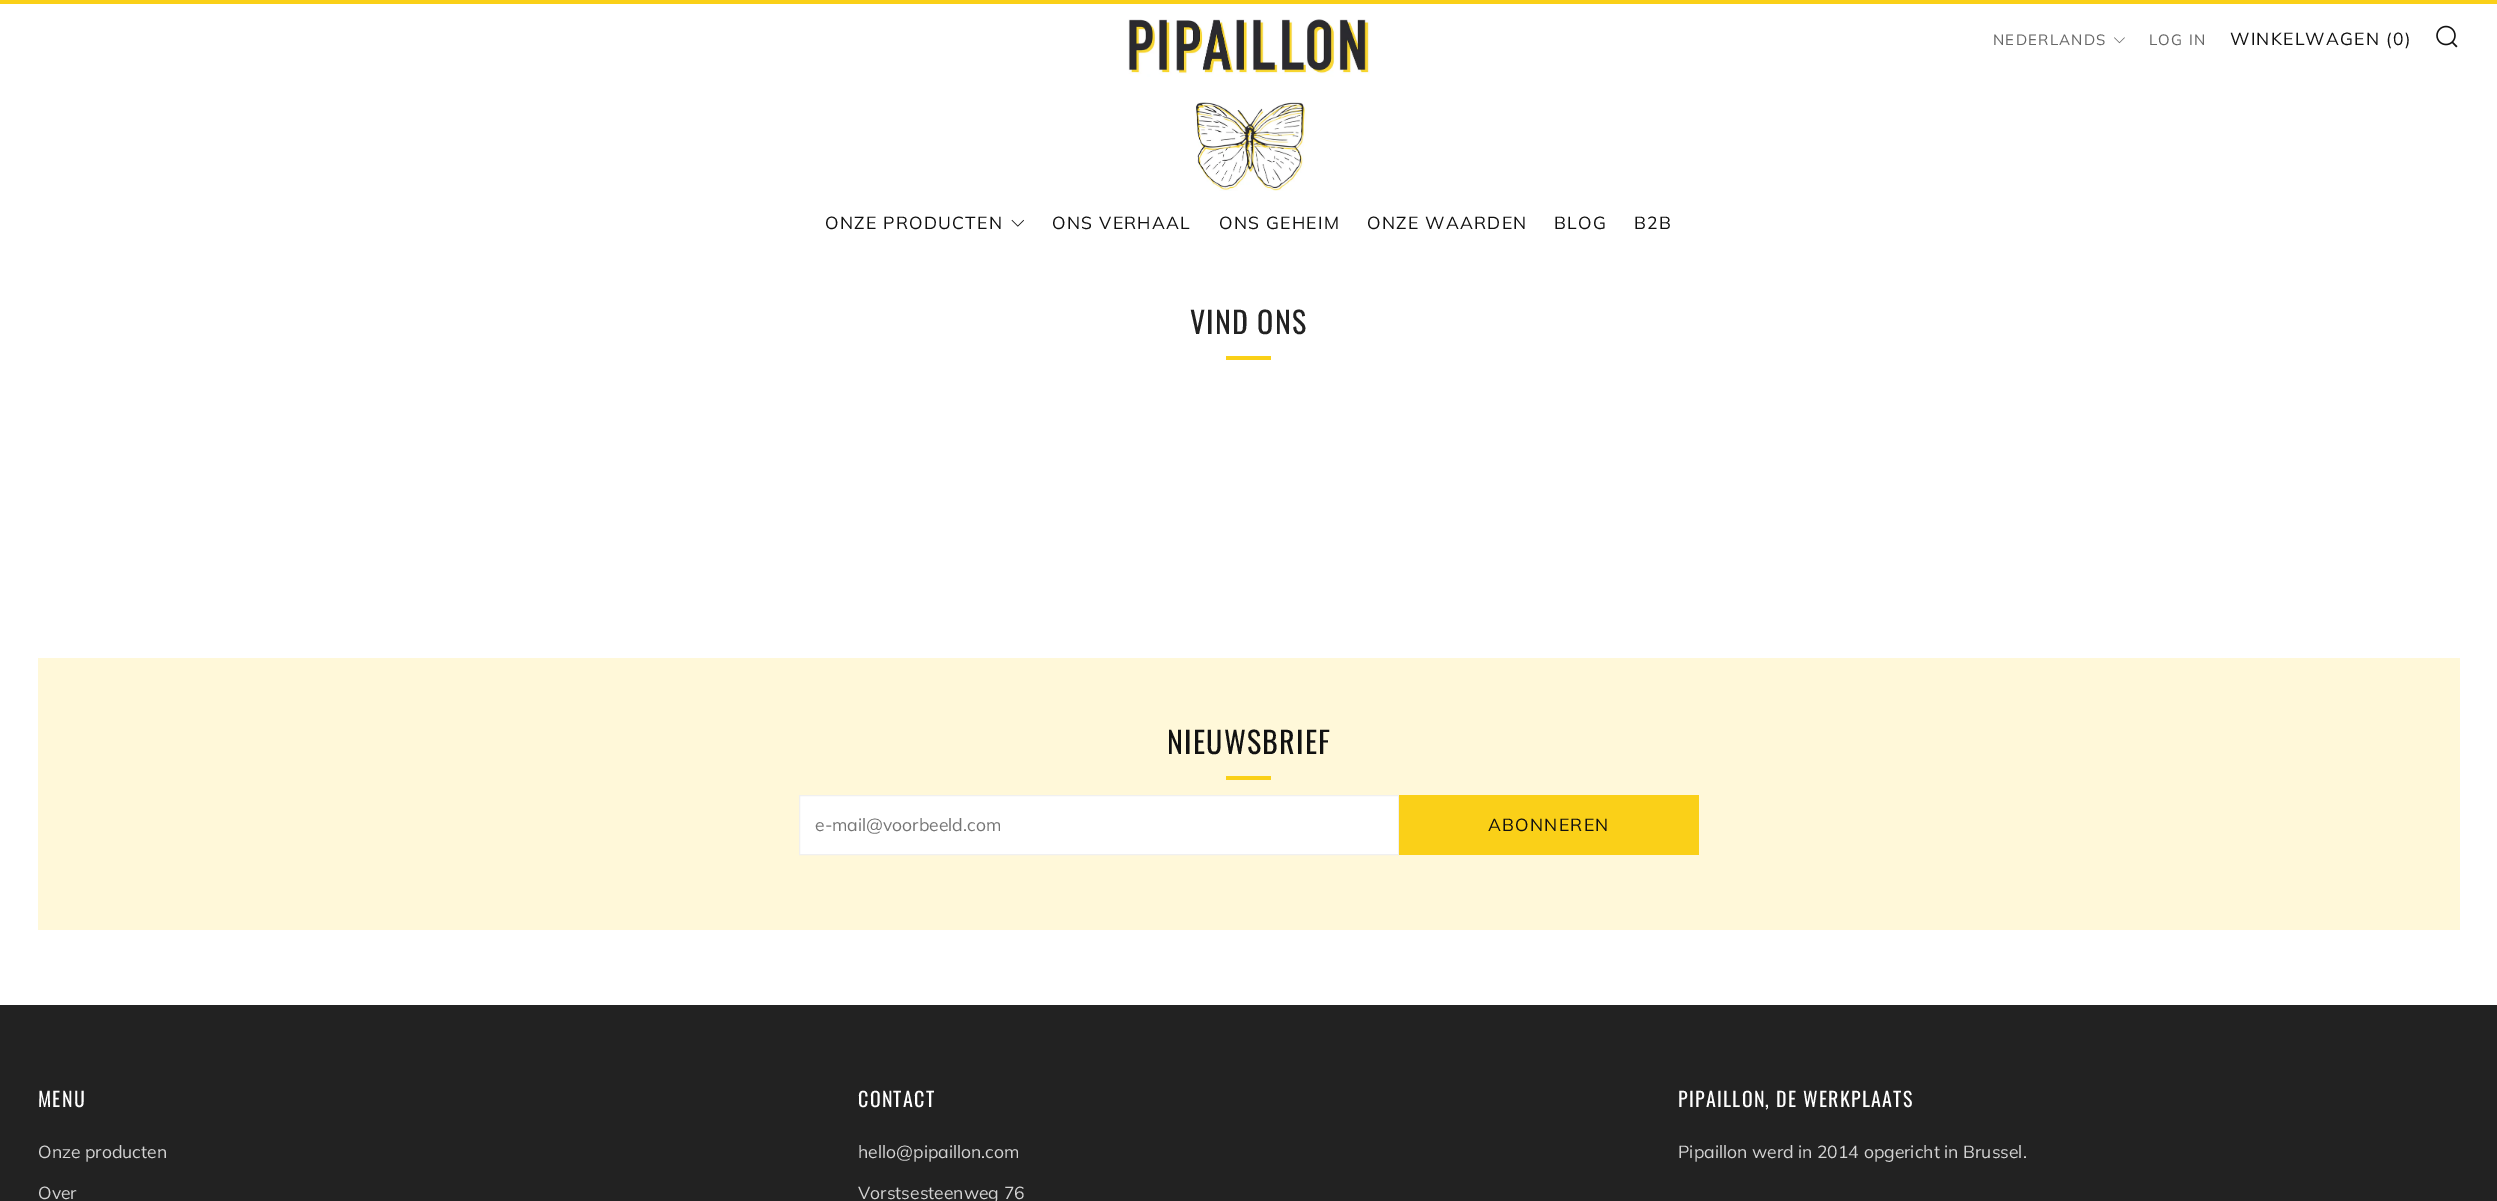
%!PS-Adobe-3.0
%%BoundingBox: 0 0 2497 1201
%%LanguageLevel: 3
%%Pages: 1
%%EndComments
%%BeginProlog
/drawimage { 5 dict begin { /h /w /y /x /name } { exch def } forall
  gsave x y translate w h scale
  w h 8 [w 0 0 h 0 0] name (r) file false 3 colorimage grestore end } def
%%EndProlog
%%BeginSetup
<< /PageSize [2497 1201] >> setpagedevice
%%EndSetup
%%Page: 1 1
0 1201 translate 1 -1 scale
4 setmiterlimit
1 setgray
0 0 2497 1201 rectfill
0.98 0.816 0.094 setrgbcolor
0 0 2497 4 rectfill
(images/1.raw) 1128 19 242 172 drawimage
(images/2.raw) 2114 37 11 7 drawimage
(images/3.raw) 2436 25 22 23 drawimage
(images/4.raw) 1011 219 13 8 drawimage
1226 356 45 4 rectfill
1 0.973 0.851 setrgbcolor
38 658 2422 272 rectfill
0.98 0.816 0.094 setrgbcolor
1226 776 45 4 rectfill
1 setgray
newpath 799.5 795.5 moveto 1398.5 795.5 lineto 1398.5 854.5 lineto 799.5 854.5 lineto closepath gsave fill grestore
0.941 setgray
stroke
0.98 0.816 0.094 setrgbcolor
1399 795 300 60 rectfill
0.133 setgray
0 1005 2497 196 rectfill
/Muli-Regular [15 0 0 -15 0 0] selectfont
0.4 setgray
1993 45 moveto 1.25 0 (NEDERLANDS) ashow
2149 45 moveto 1.25 0 (LOG IN) ashow
/Muli-Regular [17.5 0 0 -17.5 0 0] selectfont
0.067 setgray
2230 45 moveto 1.25 0 (WINKELWAGEN \(0\)) ashow
825 229 moveto 1.25 0 (ONZE PRODUCTEN) ashow
1052 229 moveto 1.25 0 (ONS VERHAAL) ashow
1219 229 moveto 1.25 0 (ONS GEHEIM) ashow
1367 229 moveto 1.25 0 (ONZE WAARDEN) ashow
1554 229 moveto 1.25 0 (BLOG) ashow
1634 229 moveto 1.25 0 (B2B) ashow
/Oswald-Regular [30 0 0 -30 0 0] selectfont
0.129 setgray
1190 334 moveto 1.25 0 (VIND ONS) ashow
0.067 setgray
1167 754 moveto 1.25 0 (NIEUWSBRIEF) ashow
/Muli-Regular [17.5 0 0 -17.5 0 0] selectfont
0.459 setgray
815 831 moveto (e-mail@voorbeeld.com) show
0.067 setgray
1488 831 moveto 1.25 0 (ABONNEREN) ashow
/Oswald-Regular [20 0 0 -20 0 0] selectfont
1 setgray
38 1107 moveto 1.25 0 (MENU) ashow
/Muli-Regular [17.5 0 0 -17.5 0 0] selectfont
0.827 setgray
38 1158 moveto (Onze producten) show
38 1199 moveto (Over) show
/Oswald-Regular [20 0 0 -20 0 0] selectfont
1 setgray
858 1107 moveto 1.25 0 (CONTACT) ashow
/Muli-Regular [17.5 0 0 -17.5 0 0] selectfont
0.827 setgray
858 1158 moveto (hello@pipaillon.com) show
858 1199 moveto (Vorstsesteenweg 76) show
/Oswald-Regular [20 0 0 -20 0 0] selectfont
1 setgray
1678 1107 moveto 1.25 0 (PIPAILLON, DE WERKPLAATS) ashow
/Muli-Regular [17.5 0 0 -17.5 0 0] selectfont
0.827 setgray
1678 1158 moveto (Pipaillon werd in 2014 opgericht in Brussel.) show
showpage
%%EOF
